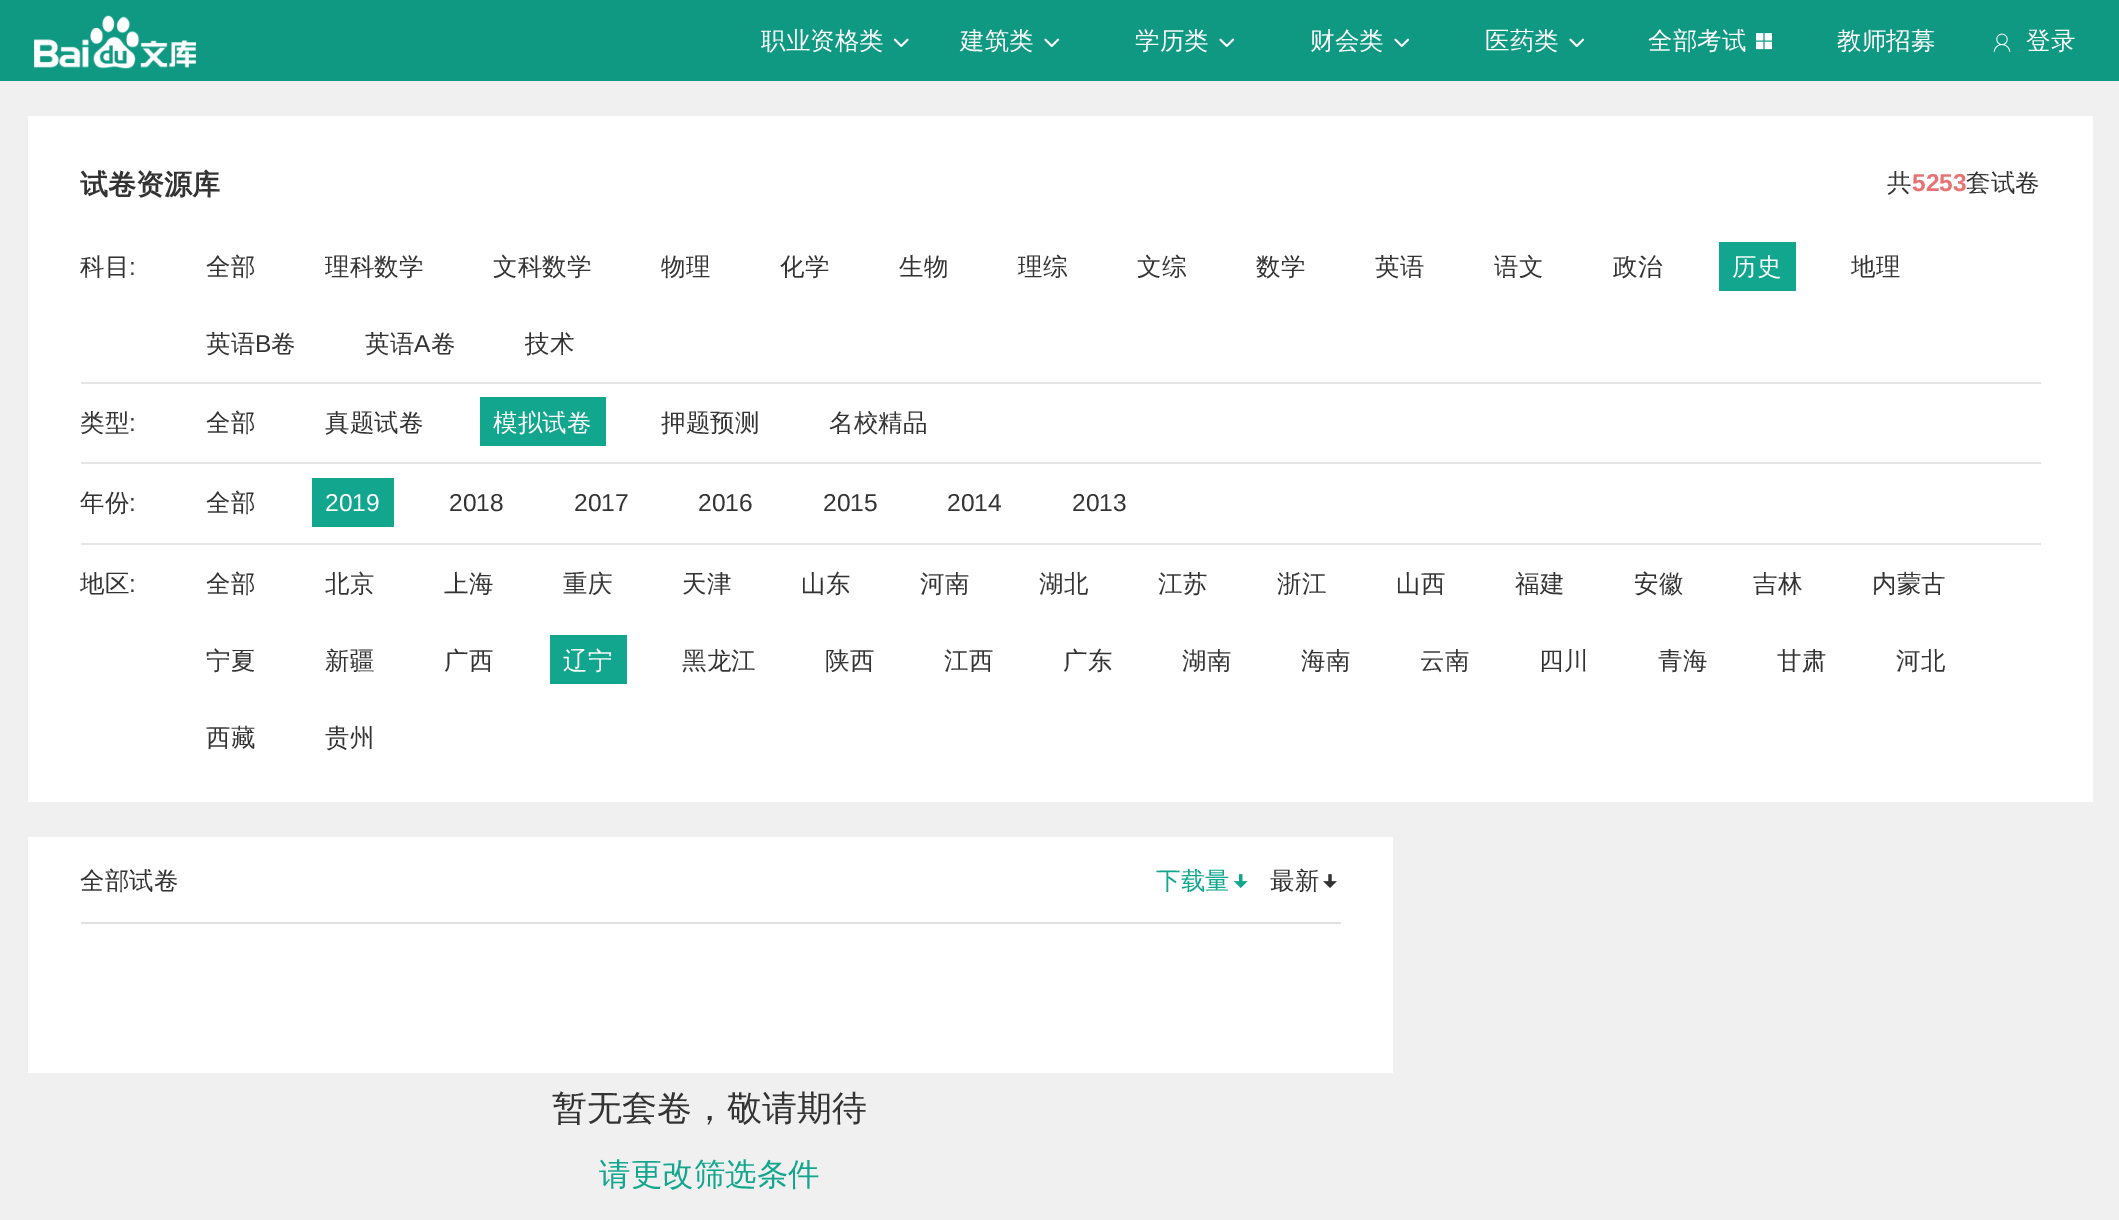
%!PS-Adobe-3.0
%%BoundingBox: 0 0 2119 1220
%%LanguageLevel: 3
%%Pages: 1
%%EndComments
%%BeginProlog
/drawimage { 5 dict begin { /h /w /y /x /name } { exch def } forall
  gsave x y translate w h scale
  w h 8 [w 0 0 h 0 0] name (r) file false 3 colorimage grestore end } def
%%EndProlog
%%BeginSetup
<< /PageSize [2119 1220] >> setpagedevice
%%EndSetup
%%Page: 1 1
0 1220 translate 1 -1 scale
4 setmiterlimit
0.941 setgray
0 0 2119 1220 rectfill
0.059 0.6 0.51 setrgbcolor
0 0 2119 81 rectfill
(images/1.raw) 34 15 162 54 drawimage
(images/2.raw) 893 38 16 9 drawimage
(images/3.raw) 1044 38 16 9 drawimage
(images/3.raw) 1219 38 16 9 drawimage
(images/3.raw) 1394 38 16 9 drawimage
(images/3.raw) 1569 38 16 9 drawimage
(images/4.raw) 1756 33 16 17 drawimage
(images/5.raw) 1993 33 18 19 drawimage
1 setgray
28 116 2065 686 rectfill
0.898 setgray
81 382 1960 2 rectfill
0.067 0.651 0.553 setrgbcolor
1719 242 77 49 rectfill
0.898 setgray
81 462 1960 2 rectfill
0.067 0.651 0.553 setrgbcolor
480 397 126 49 rectfill
0.898 setgray
81 543 1960 2 rectfill
0.067 0.651 0.553 setrgbcolor
312 478 82 49 rectfill
550 635 77 49 rectfill
1 setgray
28 837 1365 236 rectfill
0.878 setgray
81 922 1260 2 rectfill
(images/6.raw) 1233 874 15 14 drawimage
(images/7.raw) 1323 874 14 14 drawimage
/WenQuanYiZenHei-Medium [24.5 0 0 -24.5 0 0] selectfont
1 setgray
761 49 moveto (职业资格类) show
960 49 moveto (建筑类) show
1135 49 moveto (学历类) show
1310 49 moveto (财会类) show
1485 49 moveto (医药类) show
1648 49 moveto (全部考试) show
1837 49 moveto (教师招募) show
2026 49 moveto (登录) show
/WenQuanYiZenHei-Bold [28 0 0 -28 0 0] selectfont
0.2 setgray
80 194 moveto (试卷资源库) show
/WenQuanYiZenHei-Medium [24.5 0 0 -24.5 0 0] selectfont
1887 191 moveto (共) show
/LiberationSans-Bold [24.5 0 0 -24.5 0 0] selectfont
0.898 0.451 0.451 setrgbcolor
1912 191 moveto (5253) show
/WenQuanYiZenHei-Medium [24.5 0 0 -24.5 0 0] selectfont
0.2 setgray
1966 191 moveto (套试卷) show
80 275 moveto (科目) show
/LiberationSans-Regular [24.5 0 0 -24.5 0 0] selectfont
129 275 moveto (:) show
/WenQuanYiZenHei-Medium [24.5 0 0 -24.5 0 0] selectfont
206 275 moveto (全部) show
325 275 moveto (理科数学) show
493 275 moveto (文科数学) show
661 275 moveto (物理) show
780 275 moveto (化学) show
899 275 moveto (生物) show
1018 275 moveto (理综) show
1137 275 moveto (文综) show
1256 275 moveto (数学) show
1375 275 moveto (英语) show
1494 275 moveto (语文) show
1613 275 moveto (政治) show
1 setgray
1732 275 moveto (历史) show
0.2 setgray
1851 275 moveto (地理) show
206 352 moveto (英语) show
/LiberationSans-Regular [24.5 0 0 -24.5 0 0] selectfont
255 352 moveto (B) show
/WenQuanYiZenHei-Medium [24.5 0 0 -24.5 0 0] selectfont
271 352 moveto (卷) show
365 352 moveto (英语) show
/LiberationSans-Regular [24.5 0 0 -24.5 0 0] selectfont
414 352 moveto (A) show
/WenQuanYiZenHei-Medium [24.5 0 0 -24.5 0 0] selectfont
431 352 moveto (卷) show
525 352 moveto (技术) show
80 431 moveto (类型) show
/LiberationSans-Regular [24.5 0 0 -24.5 0 0] selectfont
129 431 moveto (:) show
/WenQuanYiZenHei-Medium [24.5 0 0 -24.5 0 0] selectfont
206 431 moveto (全部) show
325 431 moveto (真题试卷) show
1 setgray
493 431 moveto (模拟试卷) show
0.2 setgray
661 431 moveto (押题预测) show
829 431 moveto (名校精品) show
80 511 moveto (年份) show
/LiberationSans-Regular [24.5 0 0 -24.5 0 0] selectfont
129 511 moveto (:) show
/WenQuanYiZenHei-Medium [24.5 0 0 -24.5 0 0] selectfont
206 511 moveto (全部) show
/LiberationSans-Regular [24.5 0 0 -24.5 0 0] selectfont
1 setgray
325 511 moveto (2019) show
0.2 setgray
449 511 moveto (2018) show
574 511 moveto (2017) show
698 511 moveto (2016) show
823 511 moveto (2015) show
947 511 moveto (2014) show
1072 511 moveto (2013) show
/WenQuanYiZenHei-Medium [24.5 0 0 -24.5 0 0] selectfont
80 592 moveto (地区) show
/LiberationSans-Regular [24.5 0 0 -24.5 0 0] selectfont
129 592 moveto (:) show
/WenQuanYiZenHei-Medium [24.5 0 0 -24.5 0 0] selectfont
206 592 moveto (全部) show
325 592 moveto (北京) show
444 592 moveto (上海) show
563 592 moveto (重庆) show
682 592 moveto (天津) show
801 592 moveto (山东) show
920 592 moveto (河南) show
1039 592 moveto (湖北) show
1158 592 moveto (江苏) show
1277 592 moveto (浙江) show
1396 592 moveto (山西) show
1515 592 moveto (福建) show
1634 592 moveto (安徽) show
1753 592 moveto (吉林) show
1872 592 moveto (内蒙古) show
206 669 moveto (宁夏) show
325 669 moveto (新疆) show
444 669 moveto (广西) show
1 setgray
563 669 moveto (辽宁) show
0.2 setgray
682 669 moveto (黑龙江) show
825 669 moveto (陕西) show
944 669 moveto (江西) show
1063 669 moveto (广东) show
1182 669 moveto (湖南) show
1301 669 moveto (海南) show
1420 669 moveto (云南) show
1539 669 moveto (四川) show
1658 669 moveto (青海) show
1777 669 moveto (甘肃) show
1896 669 moveto (河北) show
206 746 moveto (西藏) show
325 746 moveto (贵州) show
80 889 moveto (全部试卷) show
0.067 0.651 0.553 setrgbcolor
1156 889 moveto (下载量) show
0.2 setgray
1270 889 moveto (最新) show
/WenQuanYiZenHei-Medium [35 0 0 -35 0 0] selectfont
552 1120 moveto (暂无套卷，敬请期待) show
/WenQuanYiZenHei-Medium [31.5 0 0 -31.5 0 0] selectfont
0.067 0.651 0.553 setrgbcolor
599 1185 moveto (请更改筛选条件) show
showpage
%%EOF
